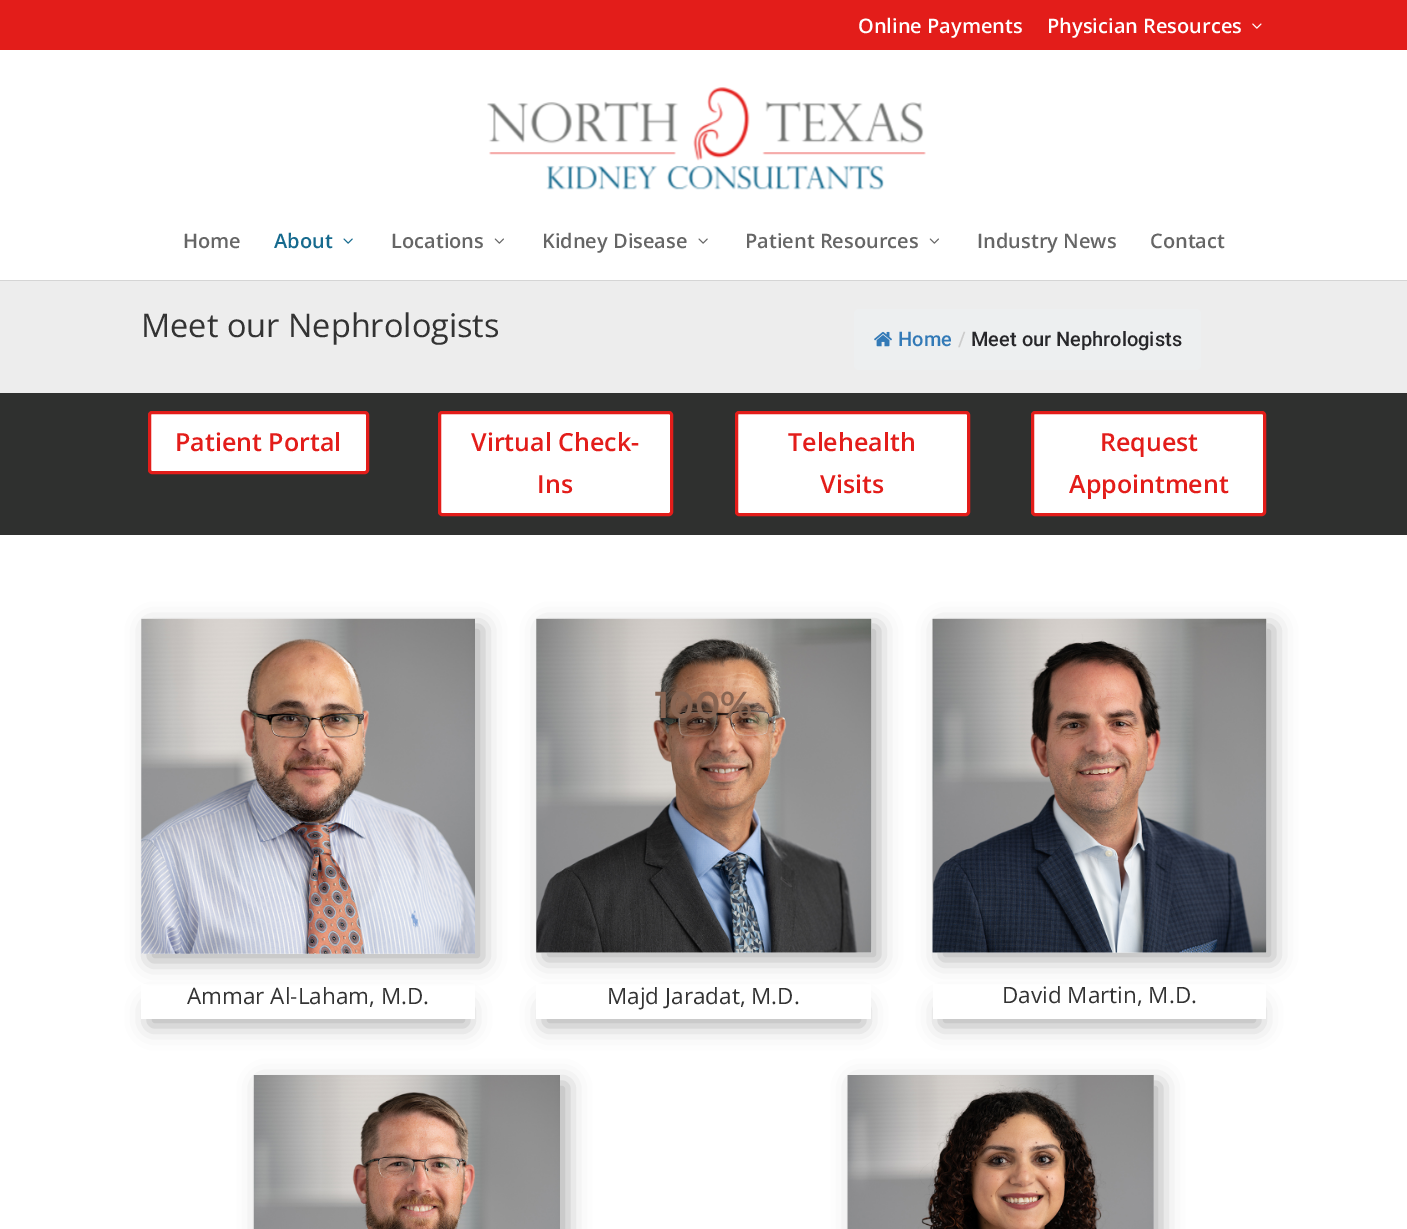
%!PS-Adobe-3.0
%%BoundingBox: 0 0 1407 1229
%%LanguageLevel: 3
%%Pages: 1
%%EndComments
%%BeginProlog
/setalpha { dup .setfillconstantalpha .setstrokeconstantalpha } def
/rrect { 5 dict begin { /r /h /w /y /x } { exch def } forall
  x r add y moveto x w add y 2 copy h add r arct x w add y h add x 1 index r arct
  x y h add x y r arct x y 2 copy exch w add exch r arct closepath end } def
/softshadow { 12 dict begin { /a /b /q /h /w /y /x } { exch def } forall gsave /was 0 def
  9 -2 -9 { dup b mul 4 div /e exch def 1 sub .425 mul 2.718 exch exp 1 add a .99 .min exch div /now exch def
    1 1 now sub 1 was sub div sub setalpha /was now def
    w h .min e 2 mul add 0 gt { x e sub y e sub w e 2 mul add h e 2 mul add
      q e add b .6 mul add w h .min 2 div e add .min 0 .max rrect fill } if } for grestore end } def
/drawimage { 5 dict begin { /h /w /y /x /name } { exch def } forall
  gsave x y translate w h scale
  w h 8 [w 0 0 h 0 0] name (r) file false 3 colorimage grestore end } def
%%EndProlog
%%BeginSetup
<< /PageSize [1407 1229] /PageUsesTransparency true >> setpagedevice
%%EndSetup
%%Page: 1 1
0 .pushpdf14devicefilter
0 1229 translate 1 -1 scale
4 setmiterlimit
1 setgray
0 0 1407 1229 rectfill
0.89 0.114 0.102 setrgbcolor
0 0 1407 50 rectfill
(images/1.raw) 1252 23 10 6 drawimage
0.835 setgray
newpath 0 280 moveto 0 281 lineto 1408 281 lineto 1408 51 lineto 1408 280 lineto closepath fill
(images/2.raw) 487 87 439 103 drawimage
(images/3.raw) 343 238 10 6 drawimage
(images/4.raw) 494 238 10 6 drawimage
(images/5.raw) 698 238 10 6 drawimage
(images/4.raw) 929 238 10 6 drawimage
0.929 setgray
0 281 1407 112 rectfill
0.929 0.937 0.941 setrgbcolor
854 309 347 61 5 rrect fill
(images/6.raw) 874 331 18 16 drawimage
0.184 0.188 0.184 setrgbcolor
0 393 1407 142 rectfill
1 setgray
149.5 412.5 218 60 2.5 rrect gsave fill grestore
0.89 0.114 0.102 setrgbcolor
3 setlinewidth
stroke
1 setgray
439.5 412.5 232 102 2.5 rrect gsave fill grestore
0.89 0.114 0.102 setrgbcolor
stroke
1 setgray
736.5 412.5 232 102 2.5 rrect gsave fill grestore
0.89 0.114 0.102 setrgbcolor
stroke
1 setgray
1032.5 412.5 232 102 2.5 rrect gsave fill grestore
0.89 0.114 0.102 setrgbcolor
stroke
0 setgray
149 626 334 335 0 11 0.3 softshadow
(images/7.raw) 141 618 334 336 drawimage
gsave
newpath 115 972 moveto 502 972 lineto 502 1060 lineto 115 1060 lineto closepath 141 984 moveto 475 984 lineto 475 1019 lineto 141 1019 lineto closepath eoclip newpath
149 1006 319 20 0 11 0.3 softshadow
grestore
544 626 335 334 0 11 0.3 softshadow
(images/8.raw) 536 618 336 335 drawimage
gsave
newpath 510 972 moveto 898 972 lineto 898 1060 lineto 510 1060 lineto closepath 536 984 moveto 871 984 lineto 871 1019 lineto 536 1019 lineto closepath eoclip newpath
544 1006 320 20 0 11 0.3 softshadow
grestore
940 626 334 334 0 11 0.3 softshadow
(images/9.raw) 932 618 335 335 drawimage
gsave
newpath 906 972 moveto 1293 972 lineto 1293 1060 lineto 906 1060 lineto closepath 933 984 moveto 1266 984 lineto 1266 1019 lineto 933 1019 lineto closepath eoclip newpath
940 1006 319 20 0 11 0.3 softshadow
grestore
261 1083 307 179 0 11 0.3 softshadow
(images/10.raw) 253 1075 307 154 drawimage
855 1083 306 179 0 11 0.3 softshadow
(images/11.raw) 847 1075 307 154 drawimage
/OpenSans-SemiBold [20 0 0 -20 0 0] selectfont
1 setgray
858 33 moveto (Online Payments) show
1047 33 moveto (Physician Resources) show
0.4 setgray
183 248 moveto (Home) show
0.086 0.416 0.557 setrgbcolor
274 248 moveto (About) show
0.4 setgray
391 248 moveto (Locations) show
542 248 moveto (Kidney Disease) show
745 248 moveto (Patient Resources) show
977 248 moveto (Industry News) show
1150 248 moveto (Contact) show
/OpenSans-Regular [32.5 0 0 -32.5 0 0] selectfont
0.2 setgray
141 337 moveto (Meet our Nephrologists) show
/Roboto-Medium [20 0 0 -20 0 0] selectfont
0.2 0.478 0.718 setrgbcolor
898 346 moveto (Home) show
0.8 setgray
958 346 moveto (/) show
0.153 0.153 0.165 setrgbcolor
971 346 moveto (Meet our Nephrologists) show
/OpenSans-SemiBold [25 0 0 -25 0 0] selectfont
0.89 0.114 0.102 setrgbcolor
175 451 moveto (Patient Portal) show
471 451 moveto (Virtual Check-) show
537 493 moveto (Ins) show
788 451 moveto (Telehealth) show
820 493 moveto (Visits) show
1100 451 moveto (Request) show
1069 493 moveto (Appointment) show
/OpenSans-Regular [22.5 0 0 -22.5 0 0] selectfont
0.2 setgray
187 1004 moveto (Ammar Al-Laham, M.D.) show
607 1004 moveto (Majd Jaradat, M.D.) show
1002 1003 moveto (David Martin, M.D.) show
/Montserrat-SemiBold [37.5 0 0 -37.5 0 0] selectfont
0.533 0.396 0.325 setrgbcolor
655 718 moveto (100%) show
.poppdf14devicefilter showpage
%%EOF
